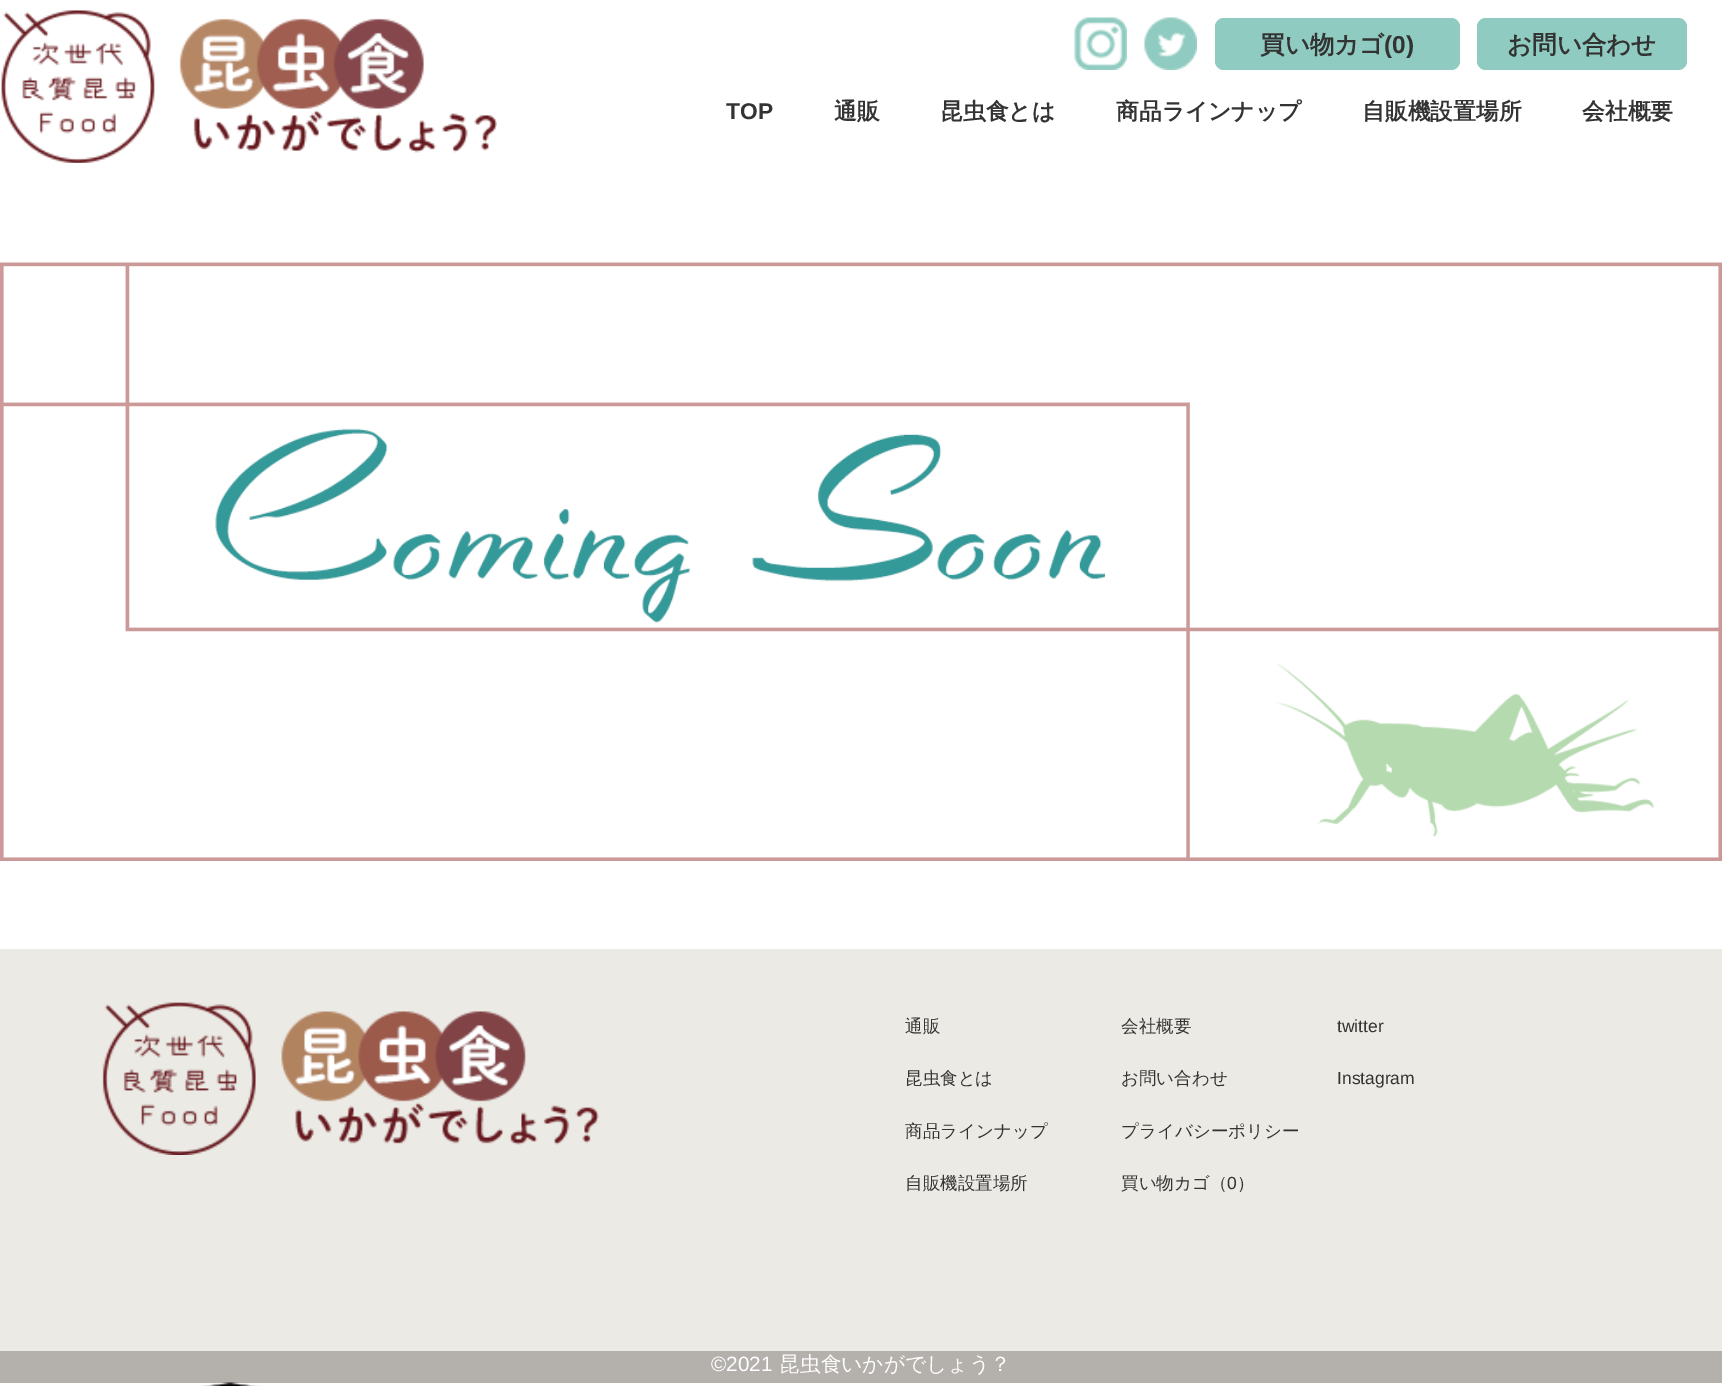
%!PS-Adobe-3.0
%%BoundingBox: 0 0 1722 1386
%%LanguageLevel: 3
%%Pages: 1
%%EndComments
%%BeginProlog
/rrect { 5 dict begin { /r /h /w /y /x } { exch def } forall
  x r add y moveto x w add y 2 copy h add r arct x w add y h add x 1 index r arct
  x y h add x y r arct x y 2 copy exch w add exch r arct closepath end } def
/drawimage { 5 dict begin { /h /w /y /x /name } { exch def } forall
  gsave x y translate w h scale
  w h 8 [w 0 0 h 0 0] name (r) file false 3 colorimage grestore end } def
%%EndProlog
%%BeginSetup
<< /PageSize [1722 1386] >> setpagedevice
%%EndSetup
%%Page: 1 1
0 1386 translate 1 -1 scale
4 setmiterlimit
1 setgray
0 0 1722 1386 rectfill
(images/1.raw) 1 10 496 153 drawimage
(images/2.raw) 1074 17 53 53 drawimage
(images/3.raw) 1144 17 53 53 drawimage
0.561 0.796 0.753 setrgbcolor
1215 18 245 52 9 rrect fill
1477 18 210 52 9 rrect fill
(images/4.raw) 0 262 1722 599 drawimage
0.922 0.918 0.898 setrgbcolor
0 949 1722 402 rectfill
(images/5.raw) 102 1002 497 153 drawimage
0.706 0.694 0.678 setrgbcolor
0 1351 1722 32 rectfill
(images/6.raw) 200 1382 60 4 drawimage
/WenQuanYiZenHei-Bold [24.5 0 0 -24.5 0 0] selectfont
0.2 setgray
1260 53 moveto (買い物カゴ) show
/LiberationSans-Bold [24.5 0 0 -24.5 0 0] selectfont
1384 53 moveto (\(0\)) show
/WenQuanYiZenHei-Bold [24.5 0 0 -24.5 0 0] selectfont
1507 53 moveto (お問い合わせ) show
/LiberationSans-Bold [22.75 0 0 -22.75 0 0] selectfont
726 119 moveto (TOP) show
/WenQuanYiZenHei-Bold [22.75 0 0 -22.75 0 0] selectfont
834 119 moveto (通販) show
940 119 moveto (昆虫食とは) show
1116 119 moveto (商品ラインナップ) show
1362 119 moveto (自販機設置場所) show
1582 119 moveto (会社概要) show
/WenQuanYiZenHei-Medium [17.5 0 0 -17.5 0 0] selectfont
905 1032 moveto (通販) show
905 1084 moveto (昆虫食とは) show
905 1137 moveto (商品ラインナップ) show
905 1189 moveto (自販機設置場所) show
1121 1032 moveto (会社概要) show
1121 1084 moveto (お問い合わせ) show
1121 1137 moveto (プライバシーポリシー) show
1121 1189 moveto (買い物カゴ（) show
/LiberationSans-Regular [17.5 0 0 -17.5 0 0] selectfont
1227 1189 moveto (0) show
/WenQuanYiZenHei-Medium [17.5 0 0 -17.5 0 0] selectfont
1237 1189 moveto (）) show
/LiberationSans-Regular [17.5 0 0 -17.5 0 0] selectfont
1337 1032 moveto (twitter) show
1337 1084 moveto (Instagram) show
/LiberationSans-Regular [20.75 0 0 -20.75 0 0] selectfont
1 setgray
711 1371 moveto (©2021) show
/WenQuanYiZenHei-Medium [20.75 0 0 -20.75 0 0] selectfont
779 1371 moveto (昆虫食いかがでしょう？) show
showpage
%%EOF
